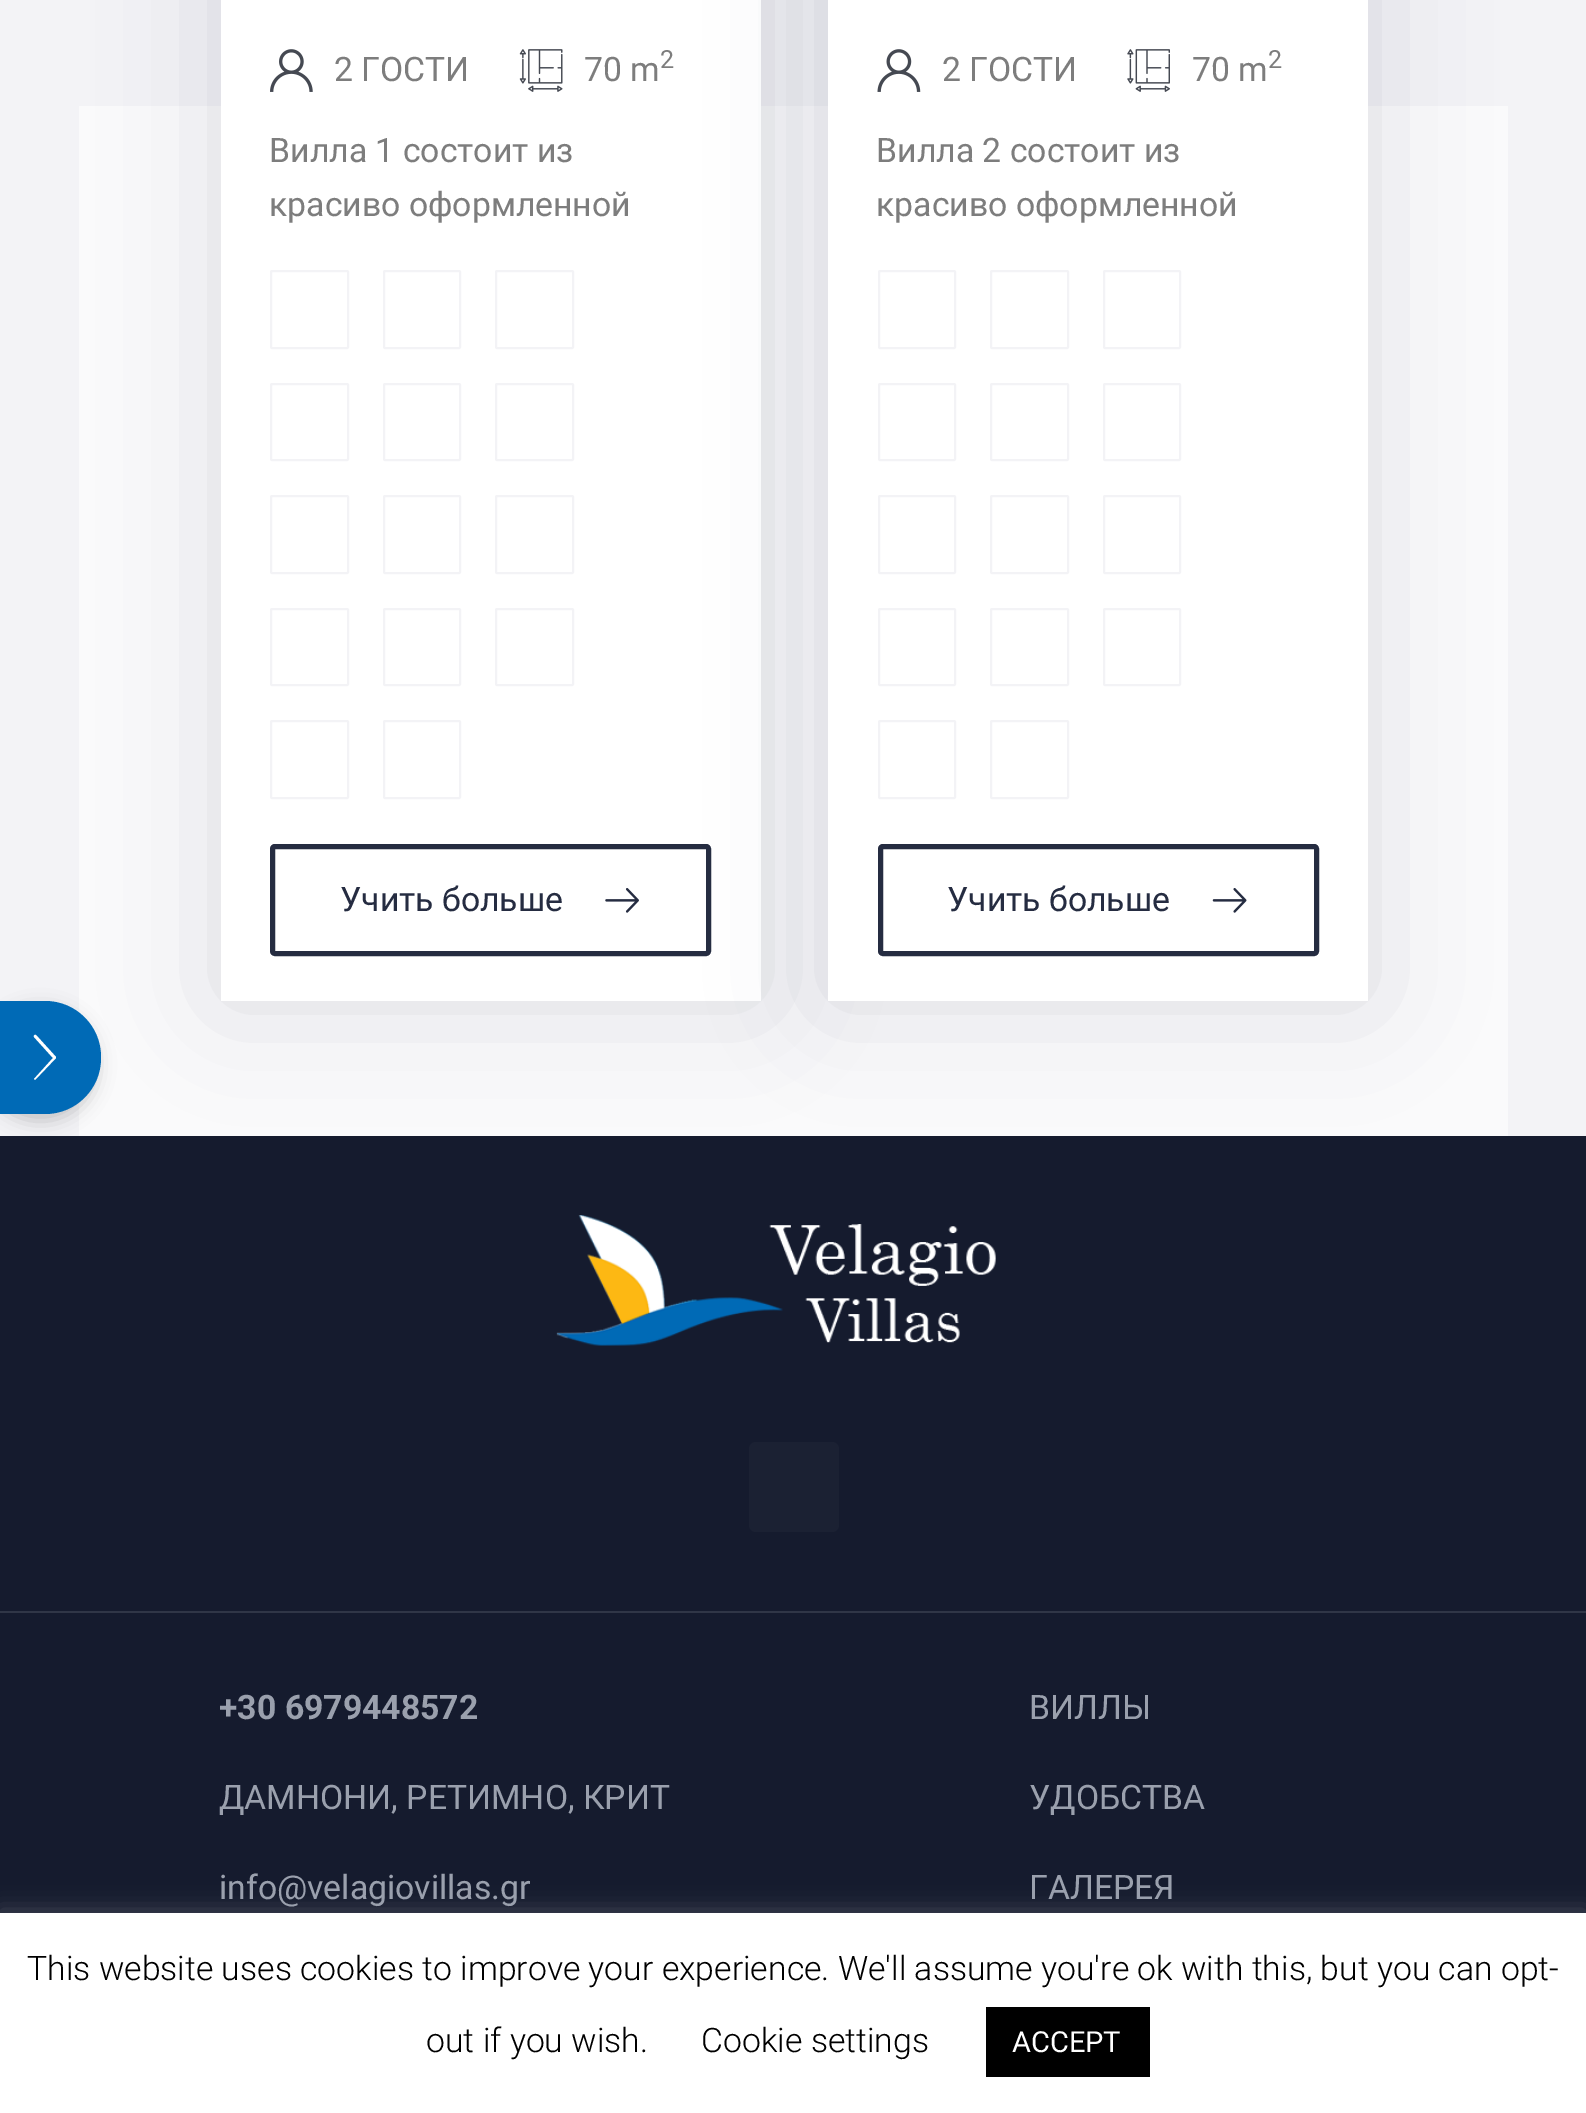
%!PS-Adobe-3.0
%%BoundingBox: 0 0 1586 2113
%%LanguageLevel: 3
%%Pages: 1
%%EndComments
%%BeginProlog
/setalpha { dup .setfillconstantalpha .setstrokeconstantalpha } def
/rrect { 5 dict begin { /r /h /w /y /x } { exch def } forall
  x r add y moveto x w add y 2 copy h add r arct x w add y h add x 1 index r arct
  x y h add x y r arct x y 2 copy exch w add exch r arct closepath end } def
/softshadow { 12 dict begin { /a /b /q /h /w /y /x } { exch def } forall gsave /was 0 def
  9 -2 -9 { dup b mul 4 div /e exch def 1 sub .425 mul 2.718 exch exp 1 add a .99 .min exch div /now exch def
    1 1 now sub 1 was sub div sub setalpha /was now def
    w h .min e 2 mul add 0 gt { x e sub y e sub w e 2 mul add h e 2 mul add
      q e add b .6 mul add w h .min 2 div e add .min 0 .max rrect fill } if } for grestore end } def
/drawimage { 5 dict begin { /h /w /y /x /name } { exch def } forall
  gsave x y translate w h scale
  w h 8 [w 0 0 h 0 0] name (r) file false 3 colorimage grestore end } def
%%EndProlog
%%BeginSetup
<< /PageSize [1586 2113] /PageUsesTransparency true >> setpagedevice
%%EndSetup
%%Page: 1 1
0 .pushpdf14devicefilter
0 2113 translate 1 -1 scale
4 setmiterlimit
0.953 0.953 0.965 setrgbcolor
0 0 1586 2113 rectfill
0.98 0.98 0.984 setrgbcolor
79 106 1429 1030 rectfill
0.082 0.106 0.18 setrgbcolor
0 1136 1586 777 rectfill
0.145 0.173 0.255 setrgbcolor
221 -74 540 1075 0 56 0.15 softshadow
1 setgray
221 0 540 1001 rectfill
(images/1.raw) 270 49 43 43 drawimage
(images/2.raw) 519 49 44 43 drawimage
0.953 0.953 0.965 setrgbcolor
2 setlinewidth
271 271 77 77 1 rrect stroke
384 271 76 77 1 rrect stroke
496 271 77 77 1 rrect stroke
271 384 77 76 1 rrect stroke
384 384 76 76 1 rrect stroke
496 384 77 76 1 rrect stroke
271 496 77 77 1 rrect stroke
384 496 76 77 1 rrect stroke
496 496 77 77 1 rrect stroke
271 609 77 76 1 rrect stroke
384 609 76 76 1 rrect stroke
496 609 77 76 1 rrect stroke
271 721 77 77 1 rrect stroke
384 721 76 77 1 rrect stroke
0.145 0.173 0.255 setrgbcolor
5 setlinewidth
272.5 846.5 436 107 2.5 rrect stroke
(images/3.raw) 605 888 34 25 drawimage
828 -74 540 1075 0 56 0.15 softshadow
1 setgray
828 0 540 1001 rectfill
(images/4.raw) 877 49 44 43 drawimage
(images/5.raw) 1127 49 43 43 drawimage
0.953 0.953 0.965 setrgbcolor
2 setlinewidth
879 271 76 77 1 rrect stroke
991 271 77 77 1 rrect stroke
1104 271 76 77 1 rrect stroke
879 384 76 76 1 rrect stroke
991 384 77 76 1 rrect stroke
1104 384 76 76 1 rrect stroke
879 496 76 77 1 rrect stroke
991 496 77 77 1 rrect stroke
1104 496 76 77 1 rrect stroke
879 609 76 76 1 rrect stroke
991 609 77 76 1 rrect stroke
1104 609 76 76 1 rrect stroke
879 721 76 77 1 rrect stroke
991 721 77 77 1 rrect stroke
0.145 0.173 0.255 setrgbcolor
5 setlinewidth
880.5 846.5 436 107 2.5 rrect stroke
(images/6.raw) 1212 888 35 25 drawimage
0 setgray
-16 1008 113 113 56.5 9 0.2 softshadow
0 0.416 0.714 setrgbcolor
newpath -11 1001 moveto 45 1001 lineto 76 1001 101 1026 101 1057 curveto 101 1058 lineto 101 1089 76 1114 45 1114 curveto -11 1114 lineto closepath fill
1 setgray
newpath 56 1057 moveto 36 1035 lineto 35 1034 33 1036 34 1037 curveto 53 1058 lineto 34 1079 lineto 34 1079 35 1080 35 1080 curveto 56 1058 lineto closepath fill
0.188 0.212 0.278 setrgbcolor
0 1611 1586 2 rectfill
(images/7.raw) 556 1215 440 131 drawimage
0.106 0.129 0.2 setrgbcolor
749 1442 90 90 7 rrect fill
0.675 0.671 0.671 setrgbcolor
0 1910 1586 203 0 11 0.3 softshadow
1 setgray
0 1913 1586 200 rectfill
0 setgray
986 2007 164 70 rectfill
/Roboto-Regular [33.75 0 0 -33.75 0 0] selectfont
0.49 setgray
334 81 moveto (2 ГОСТИ) show
584 81 moveto (70 m) show
/Roboto-Regular [25 0 0 -25 0 0] selectfont
660 68 moveto (2) show
/Roboto-Regular [33.75 0 0 -33.75 0 0] selectfont
269 162 moveto (Вилла 1 состоит из) show
269 216 moveto (красиво оформленной) show
0.145 0.173 0.255 setrgbcolor
340 911 moveto (Учить больше) show
0.49 setgray
942 81 moveto (2 ГОСТИ) show
1192 81 moveto (70 m) show
/Roboto-Regular [25 0 0 -25 0 0] selectfont
1268 68 moveto (2) show
/Roboto-Regular [33.75 0 0 -33.75 0 0] selectfont
876 162 moveto (Вилла 2 состоит из) show
876 216 moveto (красиво оформленной) show
0.145 0.173 0.255 setrgbcolor
947 911 moveto (Учить больше) show
/Roboto-Bold [33.75 0 0 -33.75 0 0] selectfont
0.604 0.627 0.678 setrgbcolor
219 1719 moveto (+30 6979448572) show
/Roboto-Regular [33.75 0 0 -33.75 0 0] selectfont
219 1809 moveto (ДАМНОНИ, РЕТИМНО, КРИТ) show
219 1899 moveto (info@velagiovillas.gr) show
1029 1719 moveto (ВИЛЛЫ) show
1029 1809 moveto (УДОБСТВА) show
1029 1899 moveto (ГАЛЕРЕЯ) show
/Roboto-Light [33.75 0 0 -33.75 0 0] selectfont
0 setgray
27 1980 moveto (This website uses cookies to improve your experience. We'll assume you're ok with this, but you can opt-) show
426 2052 moveto (out if you wish.) show
701 2052 moveto (Cookie settings) show
/Roboto-Regular [29 0 0 -29 0 0] selectfont
1 setgray
1012 2052 moveto (ACCEPT) show
.poppdf14devicefilter showpage
%%EOF
